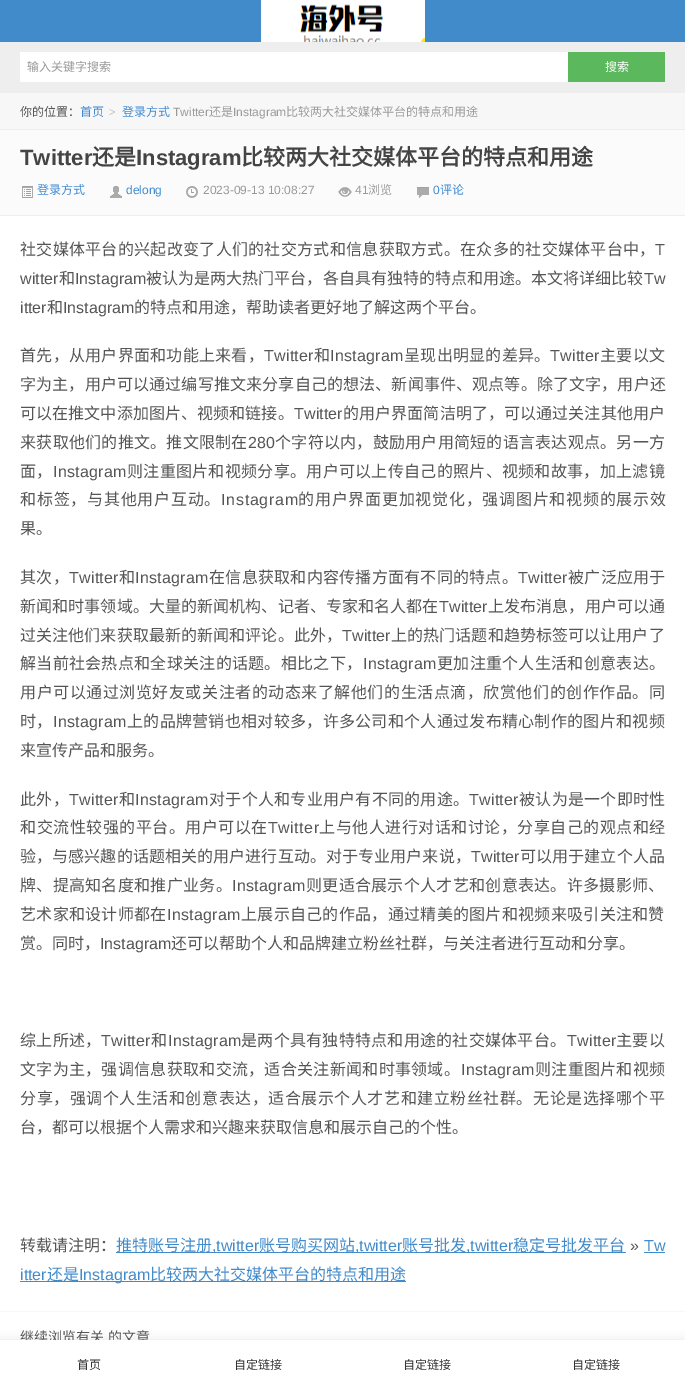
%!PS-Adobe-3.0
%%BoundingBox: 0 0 685 1390
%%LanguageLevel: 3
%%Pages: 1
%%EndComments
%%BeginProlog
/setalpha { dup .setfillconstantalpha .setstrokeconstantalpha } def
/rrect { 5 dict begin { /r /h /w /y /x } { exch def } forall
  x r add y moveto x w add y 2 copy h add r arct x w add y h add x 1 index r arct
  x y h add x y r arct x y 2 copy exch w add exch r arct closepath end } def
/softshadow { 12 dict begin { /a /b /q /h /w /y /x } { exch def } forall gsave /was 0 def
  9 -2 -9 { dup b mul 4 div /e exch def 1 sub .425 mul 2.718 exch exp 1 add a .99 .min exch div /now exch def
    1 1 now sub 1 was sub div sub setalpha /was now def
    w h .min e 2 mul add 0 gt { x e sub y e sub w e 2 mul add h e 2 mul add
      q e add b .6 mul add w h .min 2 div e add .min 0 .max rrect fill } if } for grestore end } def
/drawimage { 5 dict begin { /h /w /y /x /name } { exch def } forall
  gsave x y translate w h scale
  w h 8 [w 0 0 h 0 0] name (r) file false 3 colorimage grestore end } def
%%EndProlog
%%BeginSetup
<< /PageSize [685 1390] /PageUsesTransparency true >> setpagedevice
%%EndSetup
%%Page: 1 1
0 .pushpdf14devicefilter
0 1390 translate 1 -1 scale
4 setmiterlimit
0.933 setgray
0 0 685 1390 rectfill
0.259 0.545 0.792 setrgbcolor
0 0 685 42 rectfill
(images/1.raw) 261 0 164 42 drawimage
1 setgray
20 52 548 30 rectfill
0.361 0.722 0.361 setrgbcolor
568 52 97 30 rectfill
0.969 setgray
0 93 685 36 rectfill
0.984 setgray
0 130 685 85 rectfill
(images/2.raw) 22 186 11 12 drawimage
(images/3.raw) 110 186 12 12 drawimage
(images/4.raw) 186 186 12 12 drawimage
(images/5.raw) 338 187 14 10 drawimage
(images/6.raw) 417 187 12 11 drawimage
1 setgray
0 216 685 1095 rectfill
0.259 0.545 0.792 setrgbcolor
116 1252 510 1 rectfill
644 1252 21 1 rectfill
20 1281 386 1 rectfill
1 setgray
0 1312 685 28 rectfill
0.969 setgray
0 1311 685 1 rectfill
0 setgray
-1 1340 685 50 0 5 0.1 softshadow
/NotoSansCJKSC-Regular [12 0 0 -12 0 0] selectfont
0.6 setgray
27 71 moveto (输入关键字搜索) show
1 setgray
605 71 moveto (搜索) show
0.333 setgray
20 116 moveto (你的位置：) show
0.259 0.545 0.82 setrgbcolor
80 116 moveto (首页) show
/LiberationSerif-Bold [12 0 0 -12 0 0] selectfont
0.733 setgray
109 116 moveto (>) show
/NotoSansCJKSC-Regular [12 0 0 -12 0 0] selectfont
0.259 0.545 0.82 setrgbcolor
122 116 moveto (登录方式) show
/LiberationSans-Regular [12 0 0 -12 0 0] selectfont
0.6 setgray
173 116 moveto (Twitter) show
/NotoSansCJKSC-Regular [12 0 0 -12 0 0] selectfont
209 116 moveto (还是) show
/LiberationSans-Regular [12 0 0 -12 0 0] selectfont
233 116 moveto (Instagram) show
/NotoSansCJKSC-Regular [12 0 0 -12 0 0] selectfont
286 116 moveto (比较两大社交媒体平台的特点和用途) show
/LiberationSans-Bold [22 0 0 -22 0 0] selectfont
0.267 setgray
20 165 moveto (Twitter) show
/NotoSansCJKSC-Bold [22 0 0 -22 0 0] selectfont
92 165 moveto (还是) show
/LiberationSans-Bold [22 0 0 -22 0 0] selectfont
136 165 moveto (Instagram) show
/NotoSansCJKSC-Bold [22 0 0 -22 0 0] selectfont
241 165 moveto (比较两大社交媒体平台的特点和用途) show
/NotoSansCJKSC-Regular [12 0 0 -12 0 0] selectfont
0.259 0.545 0.82 setrgbcolor
37 194 moveto (登录方式) show
/LiberationSans-Regular [12 0 0 -12 0 0] selectfont
126 194 moveto (delong) show
0.6 setgray
203 194 moveto (2023-09-13 10:08:27) show
355 194 moveto (41) show
/NotoSansCJKSC-Regular [12 0 0 -12 0 0] selectfont
368 194 moveto (浏览) show
/LiberationSans-Regular [12 0 0 -12 0 0] selectfont
0.259 0.545 0.82 setrgbcolor
433 194 moveto (0) show
/NotoSansCJKSC-Regular [12 0 0 -12 0 0] selectfont
440 194 moveto (评论) show
/NotoSansCJKSC-Regular [16 0 0 -16 0 0] selectfont
0.333 setgray
20 255 moveto 0.3 0 (社交媒体平台的兴起改变了人们的社交方式和信息获取方式。在众多的社交媒体平台中，) ashow
/LiberationSans-Regular [16 0 0 -16 0 0] selectfont
655 255 moveto 0.3 0 (T) ashow
20 284 moveto 0.05 0 (witter) ashow
/NotoSansCJKSC-Regular [16 0 0 -16 0 0] selectfont
59 284 moveto 0.05 0 (和) ashow
/LiberationSans-Regular [16 0 0 -16 0 0] selectfont
75 284 moveto 0.05 0 (Instagram) ashow
/NotoSansCJKSC-Regular [16 0 0 -16 0 0] selectfont
146 284 moveto 0.05 0 (被认为是两大热门平台，各自具有独特的特点和用途。本文将详细比较) ashow
/LiberationSans-Regular [16 0 0 -16 0 0] selectfont
644 284 moveto 0.05 0 (Tw) ashow
20 313 moveto (itter) show
/NotoSansCJKSC-Regular [16 0 0 -16 0 0] selectfont
47 313 moveto (和) show
/LiberationSans-Regular [16 0 0 -16 0 0] selectfont
63 313 moveto (Instagram) show
/NotoSansCJKSC-Regular [16 0 0 -16 0 0] selectfont
134 313 moveto (的特点和用途，帮助读者更好地了解这两个平台。) show
20 361 moveto 0.25 0 (首先，从用户界面和功能上来看，) ashow
/LiberationSans-Regular [16 0 0 -16 0 0] selectfont
264 361 moveto 0.25 0 (Twitter) ashow
/NotoSansCJKSC-Regular [16 0 0 -16 0 0] selectfont
314 361 moveto 0.25 0 (和) ashow
/LiberationSans-Regular [16 0 0 -16 0 0] selectfont
330 361 moveto 0.25 0 (Instagram) ashow
/NotoSansCJKSC-Regular [16 0 0 -16 0 0] selectfont
404 361 moveto 0.25 0 (呈现出明显的差异。) ashow
/LiberationSans-Regular [16 0 0 -16 0 0] selectfont
550 361 moveto 0.25 0 (Twitter) ashow
/NotoSansCJKSC-Regular [16 0 0 -16 0 0] selectfont
600 361 moveto 0.25 0 (主要以文) ashow
20 390 moveto 0.15 0 (字为主，用户可以通过编写推文来分享自己的想法、新闻事件、观点等。除了文字，用户还) ashow
20 419 moveto 0.1 0 (可以在推文中添加图片、视频和链接。) ashow
/LiberationSans-Regular [16 0 0 -16 0 0] selectfont
294 419 moveto 0.1 0 (Twitter) ashow
/NotoSansCJKSC-Regular [16 0 0 -16 0 0] selectfont
343 419 moveto 0.1 0 (的用户界面简洁明了，可以通过关注其他用户) ashow
20 448 moveto 0.25 0 (来获取他们的推文。推文限制在) ashow
/LiberationSans-Regular [16 0 0 -16 0 0] selectfont
248 448 moveto 0.25 0 (280) ashow
/NotoSansCJKSC-Regular [16 0 0 -16 0 0] selectfont
275 448 moveto 0.25 0 (个字符以内，鼓励用户用简短的语言表达观点。另一方) ashow
20 477 moveto 0.3 0 (面，) ashow
/LiberationSans-Regular [16 0 0 -16 0 0] selectfont
53 477 moveto 0.3 0 (Instagram) ashow
/NotoSansCJKSC-Regular [16 0 0 -16 0 0] selectfont
127 477 moveto 0.3 0 (则注重图片和视频分享。用户可以上传自己的照片、视频和故事，加上滤镜) ashow
20 505 moveto 0.75 0 (和标签，与其他用户互动。) ashow
/LiberationSans-Regular [16 0 0 -16 0 0] selectfont
221 505 moveto 0.75 0 (Instagram) ashow
/NotoSansCJKSC-Regular [16 0 0 -16 0 0] selectfont
298 505 moveto 0.75 0 (的用户界面更加视觉化，强调图片和视频的展示效) ashow
20 534 moveto (果。) show
20 583 moveto 0.25 0 (其次，) ashow
/LiberationSans-Regular [16 0 0 -16 0 0] selectfont
69 583 moveto 0.25 0 (Twitter) ashow
/NotoSansCJKSC-Regular [16 0 0 -16 0 0] selectfont
119 583 moveto 0.25 0 (和) ashow
/LiberationSans-Regular [16 0 0 -16 0 0] selectfont
135 583 moveto 0.25 0 (Instagram) ashow
/NotoSansCJKSC-Regular [16 0 0 -16 0 0] selectfont
209 583 moveto 0.25 0 (在信息获取和内容传播方面有不同的特点。) ashow
/LiberationSans-Regular [16 0 0 -16 0 0] selectfont
518 583 moveto 0.25 0 (Twitter) ashow
/NotoSansCJKSC-Regular [16 0 0 -16 0 0] selectfont
568 583 moveto 0.25 0 (被广泛应用于) ashow
20 612 moveto 0.1 0 (新闻和时事领域。大量的新闻机构、记者、专家和名人都在) ashow
/LiberationSans-Regular [16 0 0 -16 0 0] selectfont
439 612 moveto 0.1 0 (Twitter) ashow
/NotoSansCJKSC-Regular [16 0 0 -16 0 0] selectfont
488 612 moveto 0.1 0 (上发布消息，用户可以通) ashow
20 641 moveto 0.1 0 (过关注他们来获取最新的新闻和评论。此外，) ashow
/LiberationSans-Regular [16 0 0 -16 0 0] selectfont
342 641 moveto 0.1 0 (Twitter) ashow
/NotoSansCJKSC-Regular [16 0 0 -16 0 0] selectfont
391 641 moveto 0.1 0 (上的热门话题和趋势标签可以让用户了) ashow
20 669 moveto 0.3 0 (解当前社会热点和全球关注的话题。相比之下，) ashow
/LiberationSans-Regular [16 0 0 -16 0 0] selectfont
363 669 moveto 0.3 0 (Instagram) ashow
/NotoSansCJKSC-Regular [16 0 0 -16 0 0] selectfont
437 669 moveto 0.3 0 (更加注重个人生活和创意表达。) ashow
20 698 moveto 0.55 0 (用户可以通过浏览好友或关注者的动态来了解他们的生活点滴，欣赏他们的创作作品。同) ashow
20 727 moveto 0.3 0 (时，) ashow
/LiberationSans-Regular [16 0 0 -16 0 0] selectfont
53 727 moveto 0.3 0 (Instagram) ashow
/NotoSansCJKSC-Regular [16 0 0 -16 0 0] selectfont
127 727 moveto 0.3 0 (上的品牌营销也相对较多，许多公司和个人通过发布精心制作的图片和视频) ashow
20 756 moveto (来宣传产品和服务。) show
20 805 moveto 0.25 0 (此外，) ashow
/LiberationSans-Regular [16 0 0 -16 0 0] selectfont
69 805 moveto 0.25 0 (Twitter) ashow
/NotoSansCJKSC-Regular [16 0 0 -16 0 0] selectfont
119 805 moveto 0.25 0 (和) ashow
/LiberationSans-Regular [16 0 0 -16 0 0] selectfont
135 805 moveto 0.25 0 (Instagram) ashow
/NotoSansCJKSC-Regular [16 0 0 -16 0 0] selectfont
209 805 moveto 0.25 0 (对于个人和专业用户有不同的用途。) ashow
/LiberationSans-Regular [16 0 0 -16 0 0] selectfont
469 805 moveto 0.25 0 (Twitter) ashow
/NotoSansCJKSC-Regular [16 0 0 -16 0 0] selectfont
519 805 moveto 0.25 0 (被认为是一个即时性) ashow
20 833 moveto 0.5 0 (和交流性较强的平台。用户可以在) ashow
/LiberationSans-Regular [16 0 0 -16 0 0] selectfont
268 833 moveto 0.5 0 (Twitter) ashow
/NotoSansCJKSC-Regular [16 0 0 -16 0 0] selectfont
319 833 moveto 0.5 0 (上与他人进行对话和讨论，分享自己的观点和经) ashow
20 862 moveto 0.1 0 (验，与感兴趣的话题相关的用户进行互动。对于专业用户来说，) ashow
/LiberationSans-Regular [16 0 0 -16 0 0] selectfont
471 862 moveto 0.1 0 (Twitter) ashow
/NotoSansCJKSC-Regular [16 0 0 -16 0 0] selectfont
520 862 moveto 0.1 0 (可以用于建立个人品) ashow
20 891 moveto 0.3 0 (牌、提高知名度和推广业务。) ashow
/LiberationSans-Regular [16 0 0 -16 0 0] selectfont
232 891 moveto 0.3 0 (Instagram) ashow
/NotoSansCJKSC-Regular [16 0 0 -16 0 0] selectfont
306 891 moveto 0.3 0 (则更适合展示个人才艺和创意表达。许多摄影师、) ashow
20 920 moveto 0.3 0 (艺术家和设计师都在) ashow
/LiberationSans-Regular [16 0 0 -16 0 0] selectfont
167 920 moveto 0.3 0 (Instagram) ashow
/NotoSansCJKSC-Regular [16 0 0 -16 0 0] selectfont
241 920 moveto 0.3 0 (上展示自己的作品，通过精美的图片和视频来吸引关注和赞) ashow
20 949 moveto (赏。同时，) show
/LiberationSans-Regular [16 0 0 -16 0 0] selectfont
100 949 moveto (Instagram) show
/NotoSansCJKSC-Regular [16 0 0 -16 0 0] selectfont
171 949 moveto (还可以帮助个人和品牌建立粉丝社群，与关注者进行互动和分享。) show
20 1046 moveto 0.25 0 (综上所述，) ashow
/LiberationSans-Regular [16 0 0 -16 0 0] selectfont
101 1046 moveto 0.25 0 (Twitter) ashow
/NotoSansCJKSC-Regular [16 0 0 -16 0 0] selectfont
151 1046 moveto 0.25 0 (和) ashow
/LiberationSans-Regular [16 0 0 -16 0 0] selectfont
168 1046 moveto 0.25 0 (Instagram) ashow
/NotoSansCJKSC-Regular [16 0 0 -16 0 0] selectfont
241 1046 moveto 0.25 0 (是两个具有独特特点和用途的社交媒体平台。) ashow
/LiberationSans-Regular [16 0 0 -16 0 0] selectfont
567 1046 moveto 0.25 0 (Twitter) ashow
/NotoSansCJKSC-Regular [16 0 0 -16 0 0] selectfont
616 1046 moveto 0.25 0 (主要以) ashow
20 1075 moveto 0.3 0 (文字为主，强调信息获取和交流，适合关注新闻和时事领域。) ashow
/LiberationSans-Regular [16 0 0 -16 0 0] selectfont
461 1075 moveto 0.3 0 (Instagram) ashow
/NotoSansCJKSC-Regular [16 0 0 -16 0 0] selectfont
535 1075 moveto 0.3 0 (则注重图片和视频) ashow
20 1104 moveto 0.55 0 (分享，强调个人生活和创意表达，适合展示个人才艺和建立粉丝社群。无论是选择哪个平) ashow
20 1133 moveto (台，都可以根据个人需求和兴趣来获取信息和展示自己的个性。) show
20 1251 moveto (转载请注明：) show
0.259 0.545 0.792 setrgbcolor
116 1251 moveto (推特账号注册) show
/LiberationSans-Regular [16 0 0 -16 0 0] selectfont
212 1251 moveto (,twitter) show
/NotoSansCJKSC-Regular [16 0 0 -16 0 0] selectfont
259 1251 moveto (账号购买网站) show
/LiberationSans-Regular [16 0 0 -16 0 0] selectfont
355 1251 moveto (,twitter) show
/NotoSansCJKSC-Regular [16 0 0 -16 0 0] selectfont
402 1251 moveto (账号批发) show
/LiberationSans-Regular [16 0 0 -16 0 0] selectfont
466 1251 moveto (,twitter) show
/NotoSansCJKSC-Regular [16 0 0 -16 0 0] selectfont
513 1251 moveto (稳定号批发平台) show
/LiberationSans-Regular [16 0 0 -16 0 0] selectfont
0.333 setgray
630 1251 moveto (») show
0.259 0.545 0.792 setrgbcolor
644 1251 moveto (Tw) show
20 1280 moveto (itter) show
/NotoSansCJKSC-Regular [16 0 0 -16 0 0] selectfont
47 1280 moveto (还是) show
/LiberationSans-Regular [16 0 0 -16 0 0] selectfont
79 1280 moveto (Instagram) show
/NotoSansCJKSC-Regular [16 0 0 -16 0 0] selectfont
150 1280 moveto (比较两大社交媒体平台的特点和用途) show
/NotoSansCJKSC-Regular [14 0 0 -14 0 0] selectfont
0.333 setgray
20 1342 moveto (继续浏览有关) show
108 1342 moveto (的文章) show
1 setgray
0 1340 685 50 rectfill
/NotoSansCJKSC-Regular [12 0 0 -12 0 0] selectfont
0.2 setgray
77 1369 moveto (首页) show
234 1369 moveto (自定链接) show
403 1369 moveto (自定链接) show
572 1369 moveto (自定链接) show
.poppdf14devicefilter showpage
%%EOF
